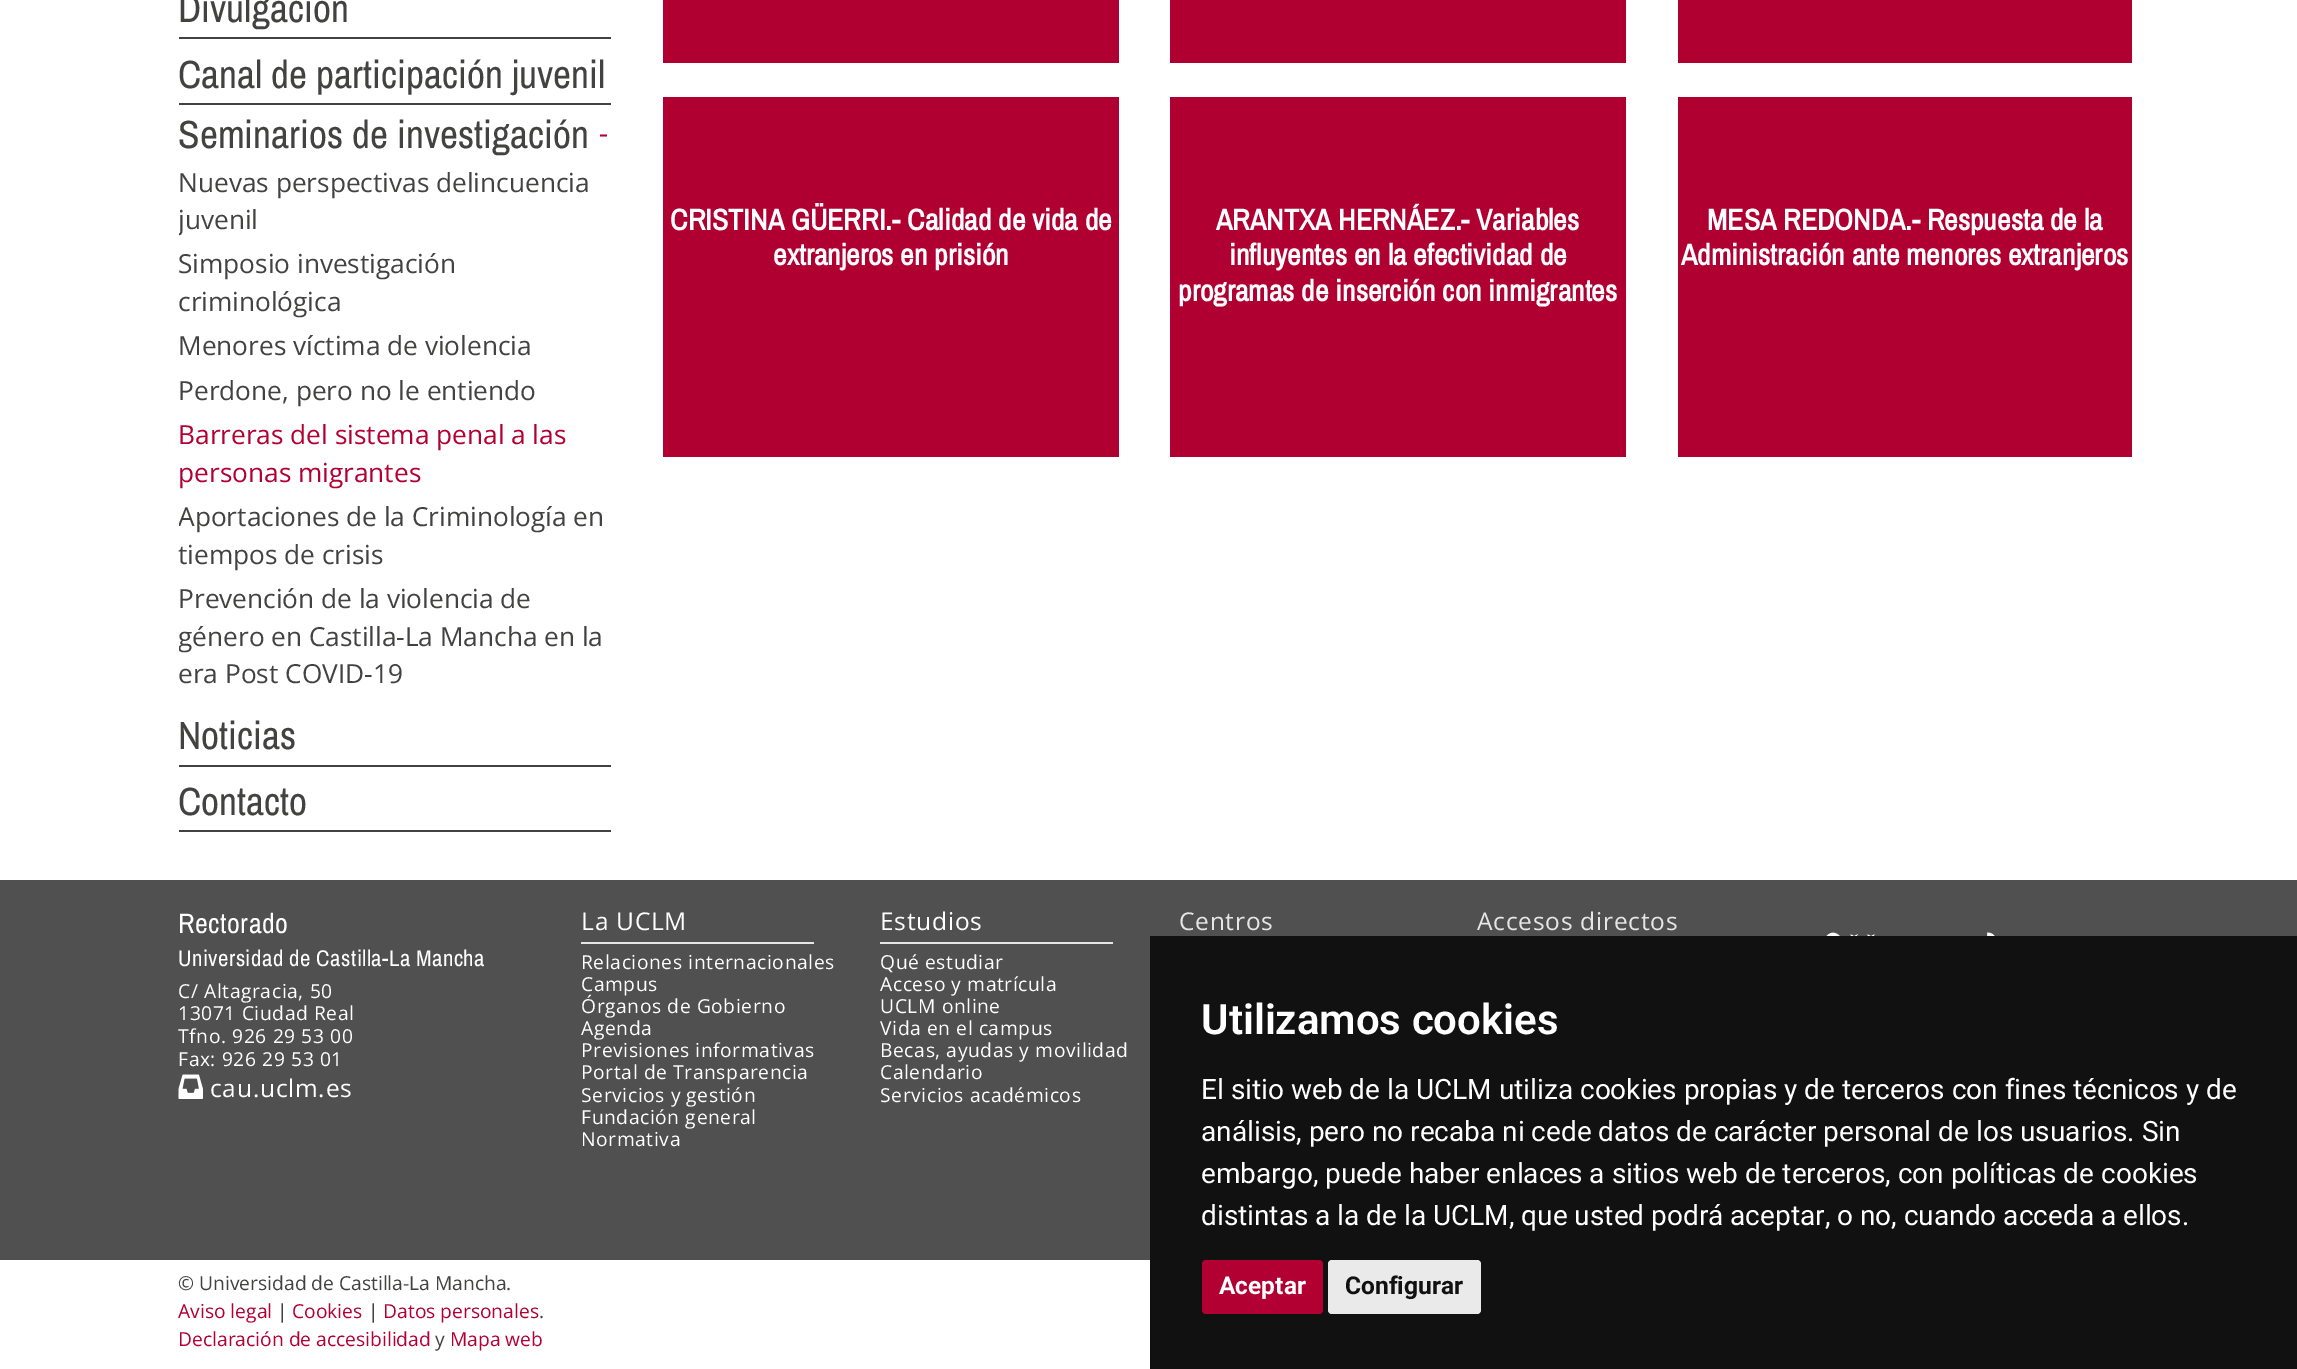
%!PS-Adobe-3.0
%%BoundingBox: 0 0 2297 1369
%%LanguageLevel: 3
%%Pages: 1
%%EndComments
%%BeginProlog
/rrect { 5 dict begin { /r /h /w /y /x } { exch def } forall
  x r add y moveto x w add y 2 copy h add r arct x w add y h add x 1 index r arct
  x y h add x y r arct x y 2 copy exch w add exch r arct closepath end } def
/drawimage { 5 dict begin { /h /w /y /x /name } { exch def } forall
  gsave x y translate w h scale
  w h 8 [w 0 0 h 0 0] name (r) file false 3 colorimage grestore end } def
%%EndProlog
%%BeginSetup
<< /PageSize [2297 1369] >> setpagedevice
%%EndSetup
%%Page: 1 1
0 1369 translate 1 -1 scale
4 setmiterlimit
1 setgray
0 0 2297 1369 rectfill
0.259 0.259 0.255 setrgbcolor
179 37 432 2 rectfill
179 103 432 2 rectfill
179 765 432 2 rectfill
179 830 432 2 rectfill
0.69 0 0.192 setrgbcolor
663 0 456 63 rectfill
1170 0 456 63 rectfill
1678 0 454 63 rectfill
663 97 456 360 rectfill
1170 97 456 360 rectfill
1678 97 454 360 rectfill
0.314 setgray
0 880 2297 380 rectfill
(images/1.raw) 178 1074 25 25 drawimage
0.902 setgray
581 942 233 2 rectfill
880 942 233 2 rectfill
(images/2.raw) 1826 932 49 4 drawimage
(images/3.raw) 1987 932 8 4 drawimage
0.067 setgray
1150 936 1147 433 rectfill
0.702 0 0.2 setrgbcolor
1202 1260 121 54 4 rrect fill
0.918 setgray
1328 1260 153 54 4 rrect fill
/ArchivoNarrow-Regular [39.4 0 0 -39.4 0 0] selectfont
0.259 0.259 0.255 setrgbcolor
178 22 moveto (Divulgación) show
178 88 moveto (Canal de participación juvenil) show
178 148 moveto (Seminarios de investigación) show
/OpenSans-Regular [28 0 0 -28 0 0] selectfont
0.702 0 0.2 setrgbcolor
599 143 moveto (-) show
/OpenSans-Regular [26.25 0 0 -26.25 0 0] selectfont
0.259 0.259 0.255 setrgbcolor
178 192 moveto (Nuevas perspectivas delincuencia) show
gsave
179 163 432 537 rectclip
178 229 moveto (juvenil) show
grestore
178 273 moveto (Simposio investigación) show
178 311 moveto (criminológica) show
178 355 moveto (Menores víctima de violencia) show
178 400 moveto (Perdone, pero no le entiendo) show
0.702 0 0.2 setrgbcolor
178 444 moveto (Barreras del sistema penal a las) show
178 482 moveto (personas migrantes) show
gsave
179 163 432 537 rectclip
0.259 0.259 0.255 setrgbcolor
178 526 moveto (Aportaciones de la Criminología en) show
grestore
0.259 0.259 0.255 setrgbcolor
178 564 moveto (tiempos de crisis) show
178 608 moveto (Prevención de la violencia de) show
gsave
179 163 432 537 rectclip
178 646 moveto (género en Castilla-La Mancha en la) show
grestore
178 683 moveto (era Post COVID-19) show
/ArchivoNarrow-Regular [39.4 0 0 -39.4 0 0] selectfont
178 749 moveto (Noticias) show
178 815 moveto (Contacto) show
/ArchivoNarrow-Bold [29.75 0 0 -29.75 0 0] selectfont
1 setgray
670 230 moveto (CRISTINA GÜERRI.- Calidad de vida de) show
773 265 moveto (extranjeros en prisión) show
1216 230 moveto (ARANTXA HERNÁEZ.- Variables) show
1229 265 moveto (influyentes en la efectividad de) show
1178 301 moveto (programas de inserción con inmigrantes) show
1707 230 moveto (MESA REDONDA.- Respuesta de la) show
1681 265 moveto (Administración ante menores extranjeros) show
/ArchivoNarrow-Regular [28 0 0 -28 0 0] selectfont
178 933 moveto 0.5 0 (Rectorado) ashow
/ArchivoNarrow-Regular [22.75 0 0 -22.75 0 0] selectfont
178 966 moveto 0.45 0 (Universidad de Castilla-La Mancha) ashow
/OpenSans-Regular [19.25 0 0 -19.25 0 0] selectfont
178 998 moveto 0.6 0 (C/ Altagracia, 50) ashow
178 1020 moveto 0.6 0 (13071 Ciudad Real) ashow
178 1043 moveto 0.6 0 (Tfno. 926 29 53 00) ashow
178 1066 moveto 0.6 0 (Fax: 926 29 53 01) ashow
/OpenSans-Regular [24.5 0 0 -24.5 0 0] selectfont
210 1097 moveto 0.75 0 (cau.uclm.es) ashow
581 930 moveto 0.75 0 (La UCLM) ashow
/OpenSans-Regular [19.25 0 0 -19.25 0 0] selectfont
581 969 moveto 0.6 0 (Relaciones internacionales) ashow
581 991 moveto 0.6 0 (Campus) ashow
581 1013 moveto 0.6 0 (Órganos de Gobierno) ashow
581 1035 moveto 0.6 0 (Agenda) ashow
581 1057 moveto 0.6 0 (Previsiones informativas) ashow
581 1079 moveto 0.6 0 (Portal de Transparencia) ashow
581 1102 moveto 0.6 0 (Servicios y gestión) ashow
581 1124 moveto 0.6 0 (Fundación general) ashow
581 1146 moveto 0.6 0 (Normativa) ashow
/OpenSans-Regular [24.5 0 0 -24.5 0 0] selectfont
880 930 moveto 0.75 0 (Estudios) ashow
/OpenSans-Regular [19.25 0 0 -19.25 0 0] selectfont
880 969 moveto 0.6 0 (Qué estudiar) ashow
880 991 moveto 0.6 0 (Acceso y matrícula) ashow
880 1013 moveto 0.6 0 (UCLM online) ashow
880 1035 moveto 0.6 0 (Vida en el campus) ashow
880 1057 moveto 0.6 0 (Becas, ayudas y movilidad) ashow
880 1079 moveto 0.6 0 (Calendario) ashow
880 1102 moveto 0.6 0 (Servicios académicos) ashow
/OpenSans-Regular [24.5 0 0 -24.5 0 0] selectfont
0.902 setgray
1179 930 moveto 0.75 0 (Centros) ashow
1477 930 moveto 0.75 0 (Accesos directos) ashow
/OpenSans-Regular [19.25 0 0 -19.25 0 0] selectfont
0.259 0.259 0.255 setrgbcolor
178 1290 moveto (© Universidad de Castilla-La Mancha.) show
0.702 0 0.2 setrgbcolor
178 1318 moveto (Aviso legal) show
0.259 0.259 0.255 setrgbcolor
277 1318 moveto (|) show
0.702 0 0.2 setrgbcolor
292 1318 moveto (Cookies) show
0.259 0.259 0.255 setrgbcolor
368 1318 moveto (|) show
0.702 0 0.2 setrgbcolor
383 1318 moveto (Datos personales) show
0.259 0.259 0.255 setrgbcolor
539 1318 moveto (.) show
0.702 0 0.2 setrgbcolor
178 1346 moveto (Declaración de accesibilidad) show
0.259 0.259 0.255 setrgbcolor
435 1346 moveto (y) show
0.702 0 0.2 setrgbcolor
450 1346 moveto (Mapa web) show
/Roboto-SemiBold [42 0 0 -42 0 0] selectfont
1 setgray
1201 1034 moveto (Utilizamos cookies) show
/Roboto-Regular [28 0 0 -28 0 0] selectfont
1201 1099 moveto (El sitio web de la UCLM utiliza cookies propias y de terceros con fines técnicos y de) show
1201 1141 moveto (análisis, pero no recaba ni cede datos de carácter personal de los usuarios. Sin) show
1201 1183 moveto (embargo, puede haber enlaces a sitios web de terceros, con políticas de cookies) show
1201 1225 moveto (distintas a la de la UCLM, que usted podrá aceptar, o no, cuando acceda a ellos.) show
/Roboto-Bold [24.5 0 0 -24.5 0 0] selectfont
1219 1294 moveto (Aceptar) show
0.067 setgray
1345 1294 moveto (Configurar) show
showpage
%%EOF
